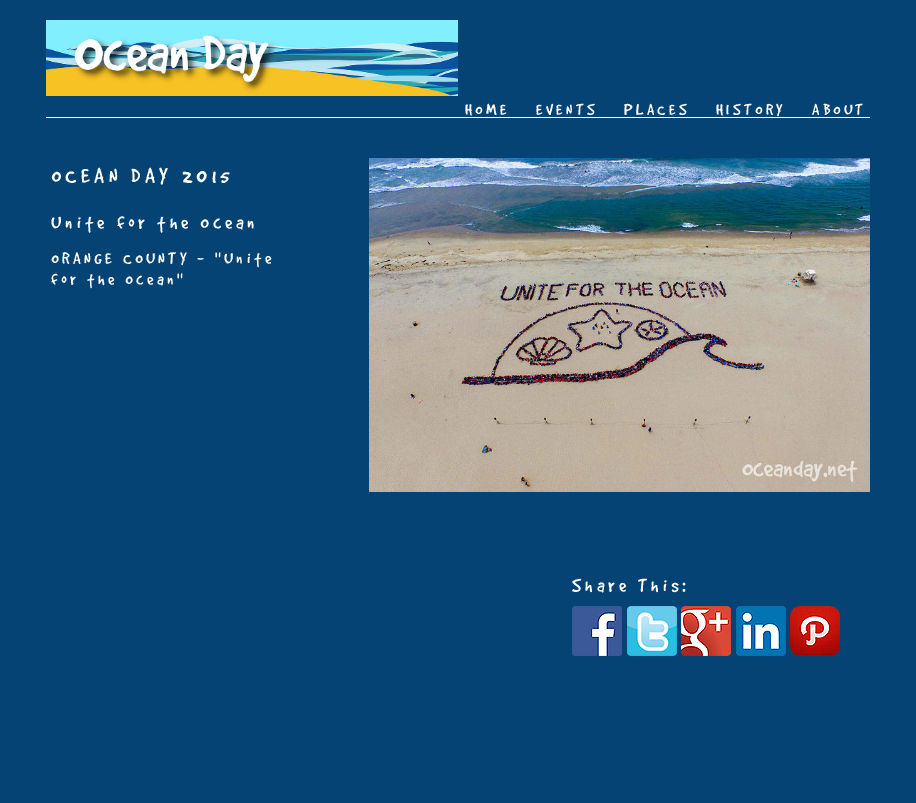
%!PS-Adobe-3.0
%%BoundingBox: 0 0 916 803
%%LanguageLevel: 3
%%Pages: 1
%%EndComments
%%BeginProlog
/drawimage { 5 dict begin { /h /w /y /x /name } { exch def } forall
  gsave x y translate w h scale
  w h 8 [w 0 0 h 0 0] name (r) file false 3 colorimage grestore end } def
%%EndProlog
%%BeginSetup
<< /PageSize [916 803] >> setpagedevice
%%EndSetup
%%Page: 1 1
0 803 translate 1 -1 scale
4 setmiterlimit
0.02 0.263 0.459 setrgbcolor
0 0 916 803 rectfill
(images/1.raw) 46 20 412 76 drawimage
1 setgray
46 117 824 1 rectfill
(images/2.raw) 369 158 501 334 drawimage
(images/3.raw) 572 606 50 50 drawimage
(images/4.raw) 627 606 50 50 drawimage
(images/5.raw) 681 606 50 50 drawimage
(images/6.raw) 736 606 50 50 drawimage
(images/7.raw) 790 606 50 50 drawimage
/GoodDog-Regular [17.5 0 0 -17.5 0 0] selectfont
465 115 moveto 3.5 0 (HOME) ashow
536 115 moveto 3.5 0 (EVENTS) ashow
624 115 moveto 3.5 0 (PLACES) ashow
716 115 moveto 3.5 0 (HISTORY) ashow
812 115 moveto 3.5 0 (ABOUT) ashow
/GoodDog-Regular [24 0 0 -24 0 0] selectfont
51 183 moveto 4.75 0 (OCEAN DAY 2015) ashow
/GoodDog-Regular [20.75 0 0 -20.75 0 0] selectfont
51 229 moveto 4.2 0 (Unite for the Ocean) ashow
/GoodDog-Regular [18.4 0 0 -18.4 0 0] selectfont
51 264 moveto 3.7 0 (ORANGE COUNTY - "Unite) ashow
51 285 moveto 3.7 0 (for the Ocean") ashow
/GoodDog-Regular [20.75 0 0 -20.75 0 0] selectfont
572 592 moveto 4.2 0 (Share This:) ashow
showpage
%%EOF
